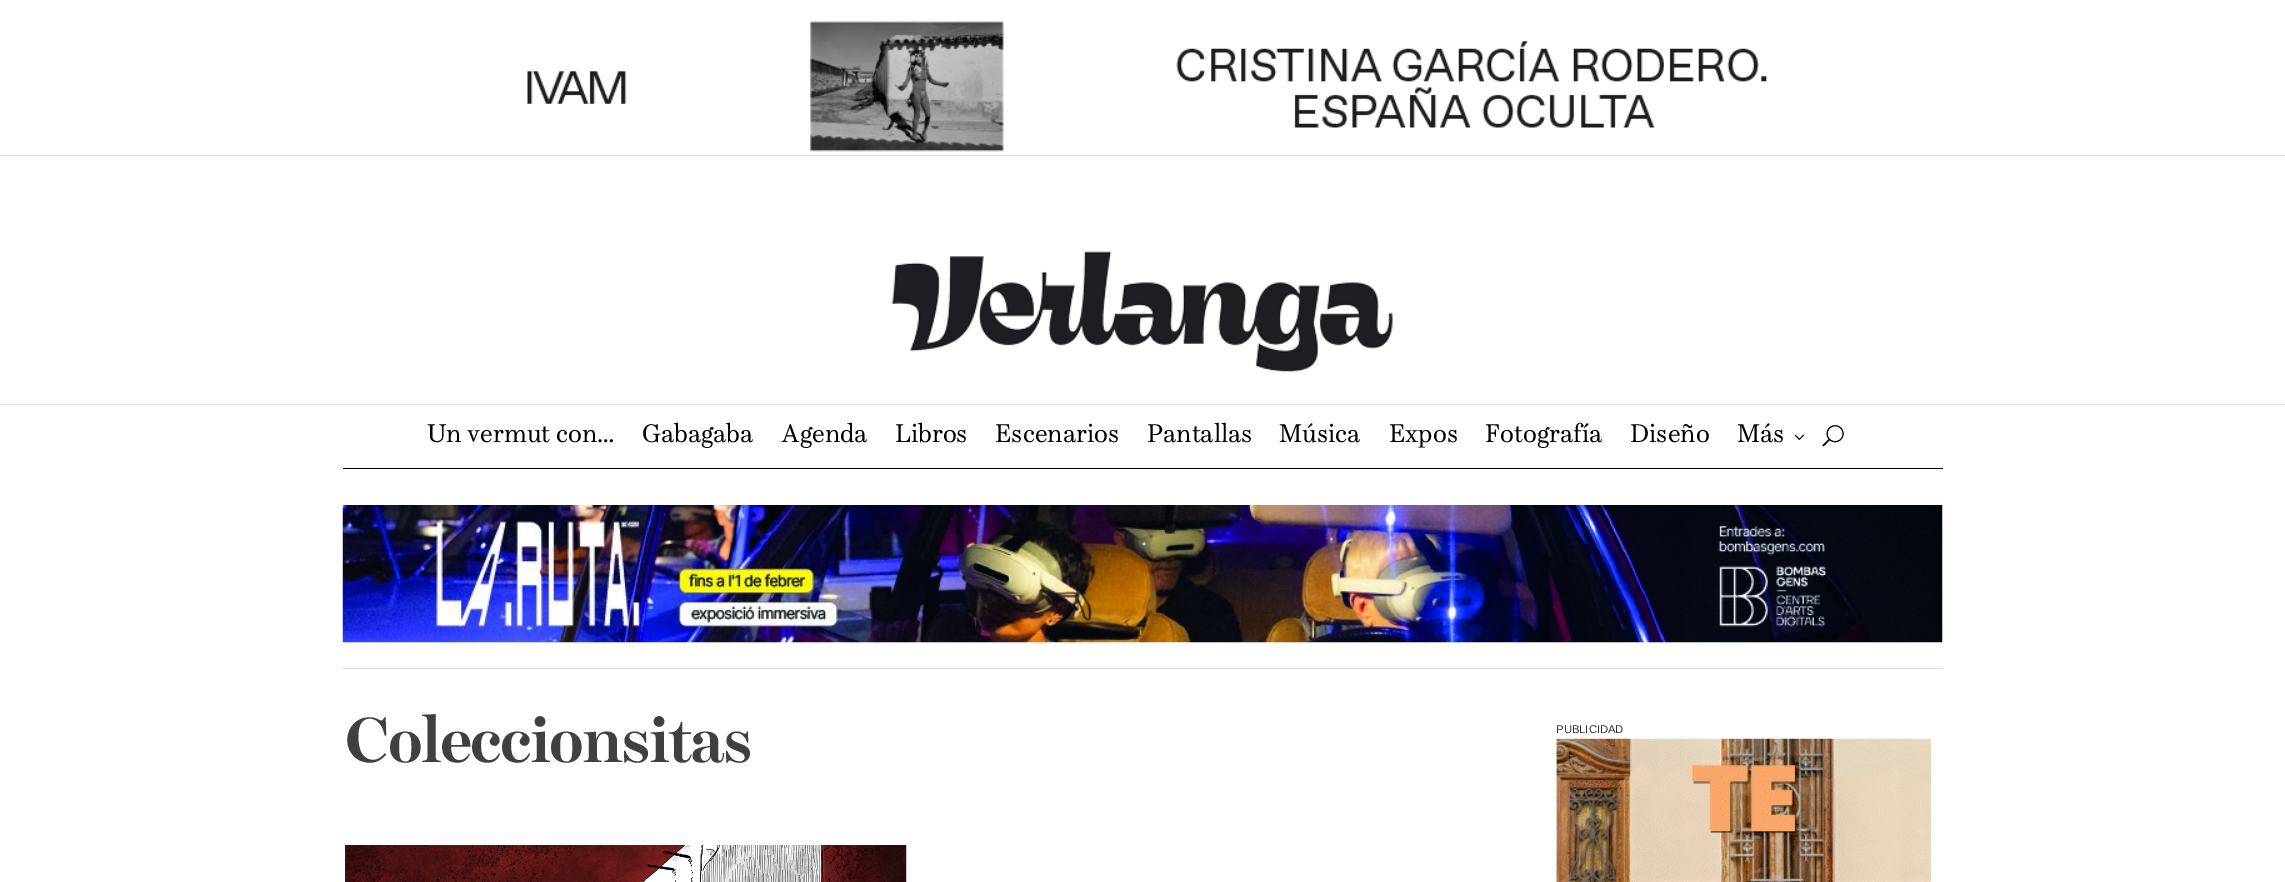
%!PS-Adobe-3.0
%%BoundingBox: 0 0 2285 882
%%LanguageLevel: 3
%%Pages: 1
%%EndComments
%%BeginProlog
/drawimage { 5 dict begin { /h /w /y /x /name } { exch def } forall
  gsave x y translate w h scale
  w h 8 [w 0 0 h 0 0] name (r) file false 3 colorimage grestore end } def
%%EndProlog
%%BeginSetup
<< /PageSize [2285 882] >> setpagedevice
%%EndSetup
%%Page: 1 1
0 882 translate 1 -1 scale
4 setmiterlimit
1 setgray
0 0 2285 882 rectfill
0.847 setgray
0 155 2285 1 rectfill
(images/1.raw) 527 21 1240 131 drawimage
(images/2.raw) 892 251 501 121 drawimage
0.886 setgray
0 404 2285 1 rectfill
0 setgray
343 468 1600 1 rectfill
(images/3.raw) 1794 434 10 6 drawimage
(images/4.raw) 1822 425 22 22 drawimage
0.867 setgray
343 668 1600 1 rectfill
(images/5.raw) 342 505 1601 138 drawimage
(images/6.raw) 345 845 562 37 drawimage
(images/7.raw) 1556 738 376 144 drawimage
/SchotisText-Regular [25 0 0 -25 0 0] selectfont
0 setgray
427 442 moveto (Un vermut con…) show
642 442 moveto (Gabagaba) show
781 442 moveto (Agenda) show
895 442 moveto (Libros) show
995 442 moveto (Escenarios) show
1147 442 moveto (Pantallas) show
1279 442 moveto (Música) show
1389 442 moveto (Expos) show
1485 442 moveto (Fotografía) show
1630 442 moveto (Diseño) show
1737 442 moveto (Más) show
/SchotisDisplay-Bold [62.5 0 0 -62.5 0 0] selectfont
0.251 setgray
345 762 moveto -1.9 0 (Coleccionsitas) ashow
/LiberationSans-Regular [11.25 0 0 -11.25 0 0] selectfont
0.2 setgray
1556 733 moveto (PUBLICIDAD) show
showpage
%%EOF
